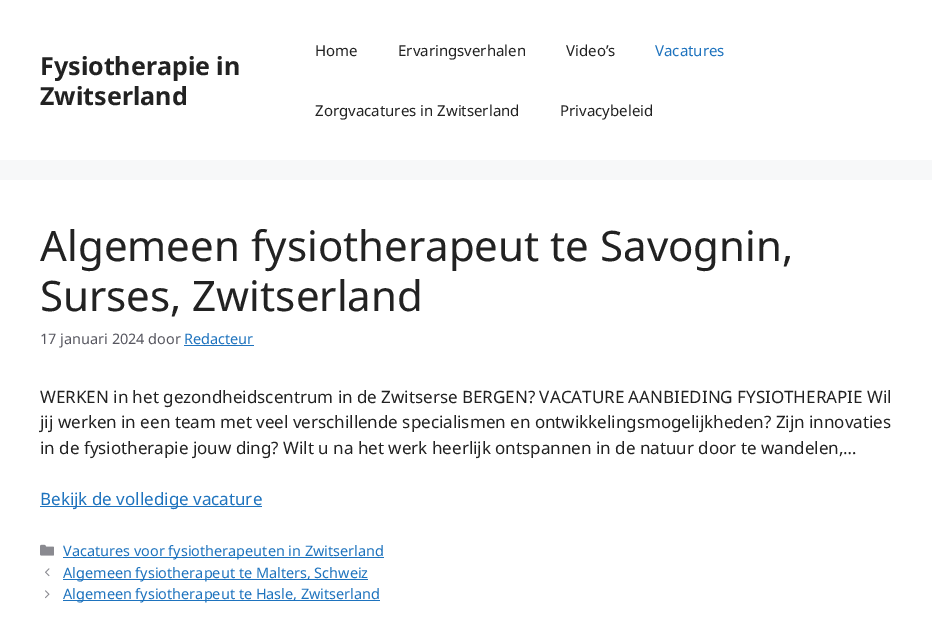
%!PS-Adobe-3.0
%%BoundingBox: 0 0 932 627
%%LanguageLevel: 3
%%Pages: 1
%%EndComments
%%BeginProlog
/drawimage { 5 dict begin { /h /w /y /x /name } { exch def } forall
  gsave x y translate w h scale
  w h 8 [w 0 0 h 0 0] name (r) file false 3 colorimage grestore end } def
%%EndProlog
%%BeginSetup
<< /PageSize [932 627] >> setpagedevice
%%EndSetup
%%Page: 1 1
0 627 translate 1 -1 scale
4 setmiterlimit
0.969 0.973 0.976 setrgbcolor
0 0 932 627 rectfill
1 setgray
0 0 932 160 rectfill
0 180 932 447 rectfill
0.118 0.451 0.745 setrgbcolor
184 345 70 1 rectfill
40 506 222 1 rectfill
(images/1.raw) 40 544 14 12 drawimage
63 557 321 1 rectfill
(images/2.raw) 45 568 5 9 drawimage
63 579 305 1 rectfill
(images/3.raw) 45 590 5 9 drawimage
63 600 317 1 rectfill
/NotoSans-Bold [25 0 0 -25 0 0] selectfont
0.133 setgray
40 75 moveto (Fysiotherapie in) show
40 105 moveto (Zwitserland) show
/NotoSans-Regular [15 0 0 -15 0 0] selectfont
315 56 moveto (Home) show
398 56 moveto (Ervaringsverhalen) show
566 56 moveto (Video’s) show
0.118 0.451 0.745 setrgbcolor
655 56 moveto (Vacatures) show
0.133 setgray
315 116 moveto (Zorgvacatures in Zwitserland) show
560 116 moveto (Privacybeleid) show
/NotoSans-Regular [42 0 0 -42 0 0] selectfont
40 261 moveto (Algemeen fysiotherapeut te Savognin,) show
40 311 moveto (Surses, Zwitserland) show
/NotoSans-Regular [14.45 0 0 -14.45 0 0] selectfont
0.341 0.341 0.376 setrgbcolor
40 344 moveto (17 januari 2024 door) show
0.118 0.451 0.745 setrgbcolor
184 344 moveto (Redacteur) show
/NotoSans-Regular [17 0 0 -17 0 0] selectfont
0.133 setgray
40 403 moveto (WERKEN in het gezondheidscentrum in de Zwitserse BERGEN? VACATURE AANBIEDING FYSIOTHERAPIE Wil) show
40 428 moveto (jij werken in een team met veel verschillende specialismen en ontwikkelingsmogelijkheden? Zijn innovaties) show
40 454 moveto (in de fysiotherapie jouw ding? Wilt u na het werk heerlijk ontspannen in de natuur door te wandelen,…) show
0.118 0.451 0.745 setrgbcolor
40 505 moveto (Bekijk de volledige vacature) show
/NotoSans-Regular [14.45 0 0 -14.45 0 0] selectfont
63 556 moveto (Vacatures voor fysiotherapeuten in Zwitserland) show
63 578 moveto (Algemeen fysiotherapeut te Malters, Schweiz) show
63 599 moveto (Algemeen fysiotherapeut te Hasle, Zwitserland) show
showpage
%%EOF
